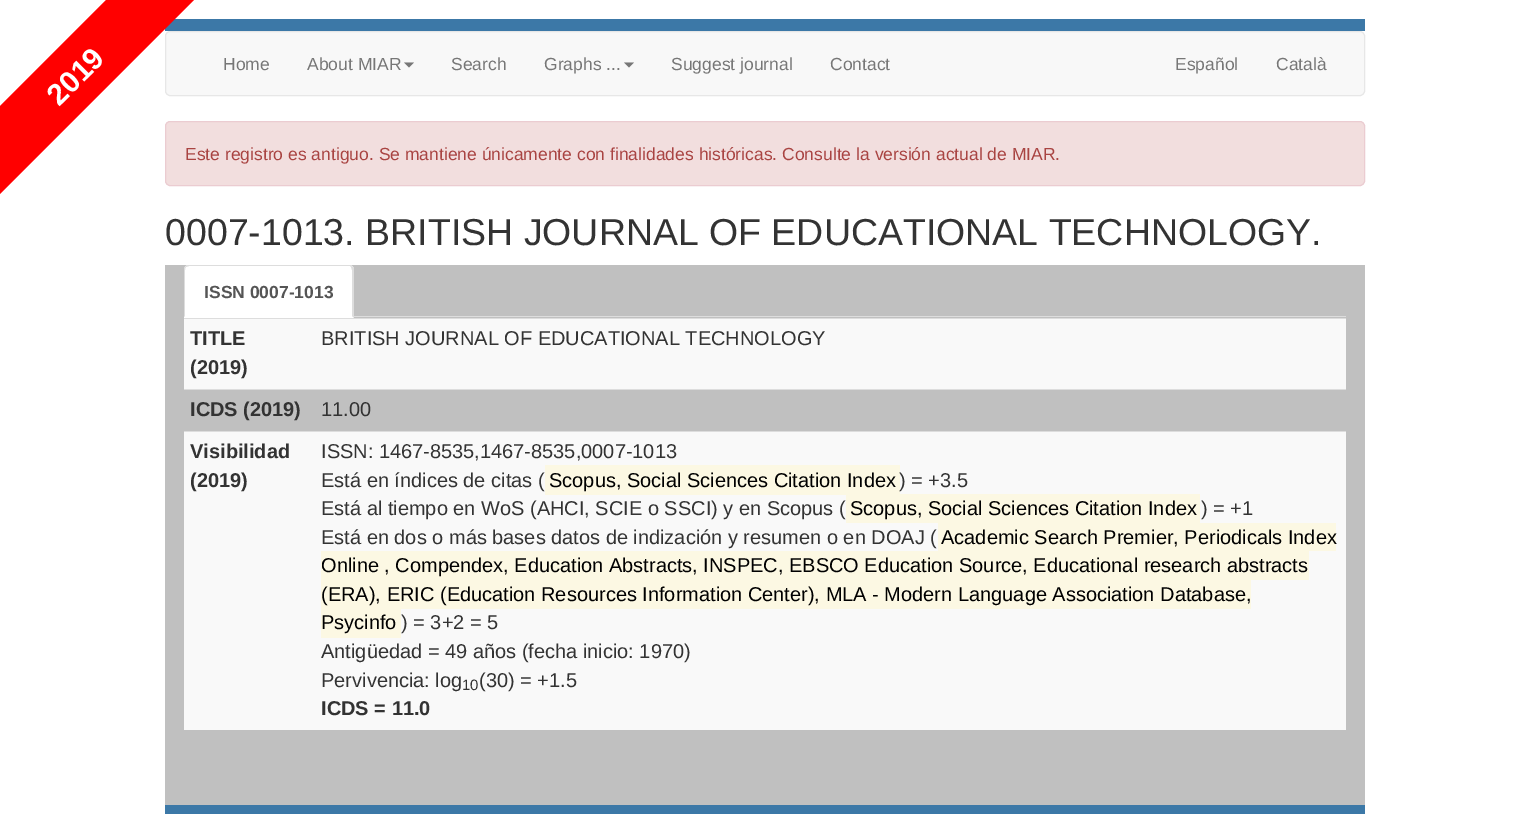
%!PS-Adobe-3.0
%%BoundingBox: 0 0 1529 814
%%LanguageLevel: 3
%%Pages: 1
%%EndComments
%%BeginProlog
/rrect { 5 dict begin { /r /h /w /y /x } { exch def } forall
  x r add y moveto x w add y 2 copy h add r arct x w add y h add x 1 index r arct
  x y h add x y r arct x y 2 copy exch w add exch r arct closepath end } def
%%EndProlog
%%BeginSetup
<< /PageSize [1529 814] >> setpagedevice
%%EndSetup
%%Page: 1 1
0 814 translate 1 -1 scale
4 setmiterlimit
1 setgray
0 0 1529 814 rectfill
0.235 0.471 0.655 setrgbcolor
165 19 1200 12 rectfill
0.973 setgray
165.5 31.5 1199 64 4.5 rrect gsave fill grestore
0.906 setgray
stroke
0.467 setgray
newpath 404 62.5 moveto 414 62.5 lineto 409 67.5 lineto closepath fill
newpath 624 62.5 moveto 634 62.5 lineto 629 67.5 lineto closepath fill
0.949 0.871 0.871 setrgbcolor
165.5 121.5 1199 64 4.5 rrect gsave fill grestore
0.922 0.8 0.82 setrgbcolor
stroke
0.753 setgray
165 265 1200 540 rectfill
0.867 setgray
354 316 992 1 rectfill
1 setgray
newpath 189 265 moveto 349 265 lineto 352 265 354 267 354 270 curveto 354 318 lineto 184 318 lineto 184 270 lineto 184 267 186 265 189 265 curveto closepath fill
0.867 setgray
newpath 189 265 moveto 187 265 186 266 185 267 curveto 186 267 lineto 189 266 lineto 350 266 lineto 351 267 lineto 352 266 lineto 352 265 350 265 349 265 curveto closepath fill
newpath 352 266 moveto 354 268 lineto 354 318 lineto 352 316 lineto 352 270 lineto 351 267 lineto closepath fill
newpath 185 267 moveto 184 267 184 269 184 270 curveto 184 317 lineto 185 316 lineto 185 270 lineto 185 269 185 268 186 267 curveto closepath fill
0.976 setgray
184 319 1162 70 rectfill
0.867 setgray
184 318 1162 1 rectfill
184 389 1162 1 rectfill
0.976 setgray
184 432 1162 298 rectfill
0.867 setgray
184 431 1162 1 rectfill
0.988 0.973 0.89 setrgbcolor
545 465 355 30 rectfill
846 494 354 29 rectfill
938 523 398 28 rectfill
321 551 988 29 rectfill
321 580 930 29 rectfill
321 609 80 29 rectfill
0.235 0.471 0.655 setrgbcolor
165 805 1200 9 rectfill
/LiberationSans-Regular [17.5 0 0 -17.5 0 0] selectfont
0.467 setgray
223 70 moveto (Home) show
307 70 moveto (About MIAR) show
451 70 moveto (Search) show
544 70 moveto (Graphs ...) show
671 70 moveto (Suggest journal) show
830 70 moveto (Contact) show
1175 70 moveto (Español) show
1276 70 moveto (Català) show
0.663 0.267 0.259 setrgbcolor
185 160 moveto (Este registro es antiguo. Se mantiene únicamente con finalidades históricas. Consulte la versión actual de MIAR.) show
1 0 0 setrgbcolor
newpath -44 150 moveto 150 -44 lineto 194 0 lineto 0 194 lineto closepath fill
/LiberationSans-Bold [30 0 0 -30 0 0] selectfont
1 setgray
gsave 59 107 translate -45 rotate 0 0 moveto (2019) show grestore
/LiberationSans-Regular [37.5 0 0 -37.5 0 0] selectfont
0.2 setgray
165 245 moveto (0007-1013. BRITISH JOURNAL OF EDUCATIONAL TECHNOLOGY.) show
/LiberationSans-Bold [17.5 0 0 -17.5 0 0] selectfont
0.333 setgray
204 298 moveto (ISSN 0007-1013) show
/LiberationSans-Bold [20 0 0 -20 0 0] selectfont
0.2 setgray
190 345 moveto (TITLE) show
190 374 moveto (\(2019\)) show
/LiberationSans-Regular [20 0 0 -20 0 0] selectfont
321 345 moveto (BRITISH JOURNAL OF EDUCATIONAL TECHNOLOGY) show
/LiberationSans-Bold [20 0 0 -20 0 0] selectfont
190 416 moveto (ICDS \(2019\)) show
/LiberationSans-Regular [20 0 0 -20 0 0] selectfont
321 416 moveto (11.00) show
/LiberationSans-Bold [20 0 0 -20 0 0] selectfont
190 458 moveto (Visibilidad) show
190 487 moveto (\(2019\)) show
/LiberationSans-Regular [20 0 0 -20 0 0] selectfont
321 458 moveto (ISSN: 1467-8535,1467-8535,0007-1013) show
321 487 moveto (Está en índices de citas \() show
0 setgray
549 487 moveto (Scopus, Social Sciences Citation Index) show
0.2 setgray
899 487 moveto (\) = +3.5) show
321 515 moveto (Está al tiempo en WoS \(AHCI, SCIE o SSCI\) y en Scopus \() show
0 setgray
850 515 moveto (Scopus, Social Sciences Citation Index) show
0.2 setgray
1201 515 moveto (\) = +1) show
321 544 moveto (Está en dos o más bases datos de indización y resumen o en DOAJ \() show
0 setgray
941 544 moveto (Academic Search Premier, Periodicals Index) show
321 572 moveto (Online , Compendex, Education Abstracts, INSPEC, EBSCO Education Source, Educational research abstracts) show
321 601 moveto (\(ERA\), ERIC \(Education Resources Information Center\), MLA - Modern Language Association Database,) show
321 629 moveto (Psycinfo) show
0.2 setgray
401 629 moveto (\) = 3+2 = 5) show
321 658 moveto (Antigüedad = 49 años \(fecha inicio: 1970\)) show
321 687 moveto (Pervivencia: log) show
/LiberationSans-Regular [15 0 0 -15 0 0] selectfont
462 690 moveto (10) show
/LiberationSans-Regular [20 0 0 -20 0 0] selectfont
479 687 moveto (\(30\) = +1.5) show
/LiberationSans-Bold [20 0 0 -20 0 0] selectfont
321 715 moveto (ICDS = 11.0) show
showpage
%%EOF
